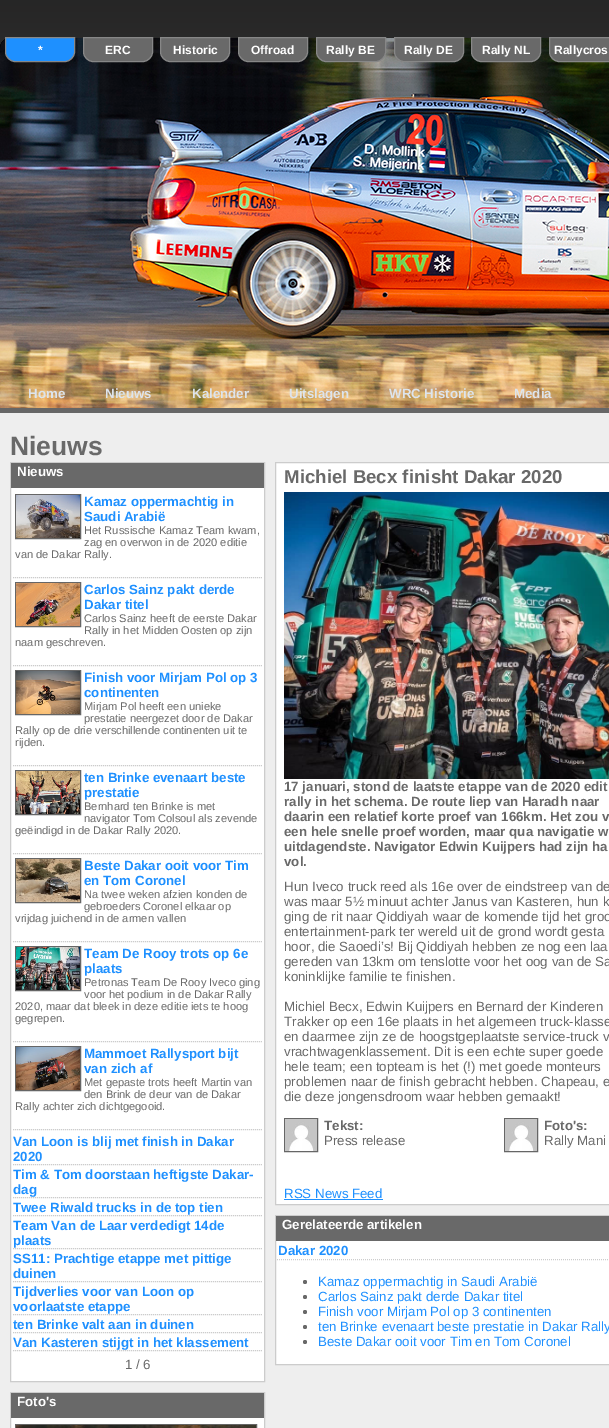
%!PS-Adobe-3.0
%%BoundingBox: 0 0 609 1428
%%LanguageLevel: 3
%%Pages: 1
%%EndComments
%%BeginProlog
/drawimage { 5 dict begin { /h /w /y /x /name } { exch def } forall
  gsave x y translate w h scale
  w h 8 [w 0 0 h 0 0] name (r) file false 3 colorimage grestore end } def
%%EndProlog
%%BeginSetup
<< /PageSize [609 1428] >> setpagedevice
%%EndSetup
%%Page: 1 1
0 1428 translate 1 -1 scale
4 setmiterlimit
1 setgray
0 0 609 1428 rectfill
(images/1.raw) 0 0 609 413 drawimage
0 setgray
newpath 10 38 moveto 609 38 lineto 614.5 38 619 42.5 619 48 curveto 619 408 lineto 0 408 lineto 0 48 lineto 0 42.5 4.5 38 10 38 curveto closepath fill
(images/2.raw) 0 38 609 370 drawimage
0.118 0.565 1 setrgbcolor
newpath 5.5 37.5 moveto 74.5 37.5 lineto 74.5 52 lineto 74.5 57 70 61.5 65 61.5 curveto 15 61.5 lineto 10 61.5 5.5 57 5.5 52 curveto closepath gsave fill grestore
0.529 setgray
stroke
0.412 setgray
newpath 83.5 37.5 moveto 152.5 37.5 lineto 152.5 52 lineto 152.5 57 148 61.5 143 61.5 curveto 93 61.5 lineto 88 61.5 83.5 57 83.5 52 curveto closepath gsave fill grestore
0.529 setgray
stroke
0.412 setgray
newpath 160.5 37.5 moveto 229.5 37.5 lineto 229.5 52 lineto 229.5 57 225 61.5 220 61.5 curveto 170 61.5 lineto 165 61.5 160.5 57 160.5 52 curveto closepath gsave fill grestore
0.529 setgray
stroke
0.412 setgray
newpath 238.5 37.5 moveto 307.5 37.5 lineto 307.5 52 lineto 307.5 57 303 61.5 298 61.5 curveto 248 61.5 lineto 243 61.5 238.5 57 238.5 52 curveto closepath gsave fill grestore
0.529 setgray
stroke
0.412 setgray
newpath 316.5 37.5 moveto 385.5 37.5 lineto 385.5 52 lineto 385.5 57 381 61.5 376 61.5 curveto 326 61.5 lineto 321 61.5 316.5 57 316.5 52 curveto closepath gsave fill grestore
0.529 setgray
stroke
0.412 setgray
newpath 394.5 37.5 moveto 463.5 37.5 lineto 463.5 52 lineto 463.5 57 459 61.5 454 61.5 curveto 404 61.5 lineto 399 61.5 394.5 57 394.5 52 curveto closepath gsave fill grestore
0.529 setgray
stroke
0.412 setgray
newpath 471.5 37.5 moveto 540.5 37.5 lineto 540.5 52 lineto 540.5 57 536 61.5 531 61.5 curveto 481 61.5 lineto 476 61.5 471.5 57 471.5 52 curveto closepath gsave fill grestore
0.529 setgray
stroke
0.412 setgray
newpath 549.5 37.5 moveto 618.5 37.5 lineto 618.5 52 lineto 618.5 57 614 61.5 609 61.5 curveto 559 61.5 lineto 554 61.5 549.5 57 549.5 52 curveto closepath gsave fill grestore
0.529 setgray
stroke
0.933 setgray
0 413 609 1015 rectfill
1 setgray
11 488 253 893 rectfill
0.8 setgray
10.5 462.5 254 919 rectstroke
0.412 setgray
11 463 253 25 rectfill
0.8 setgray
[1 1] 0 setdash
newpath 13 577.5 moveto 262 577.5 lineto stroke
0.4 setgray
[] 0 setdash
15.5 494.5 65 44 rectstroke
(images/3.raw) 16 495 64 43 drawimage
0.8 setgray
[1 1] 0 setdash
newpath 13 665.5 moveto 262 665.5 lineto stroke
0.4 setgray
[] 0 setdash
15.5 582.5 65 44 rectstroke
(images/4.raw) 16 583 64 43 drawimage
0.8 setgray
[1 1] 0 setdash
newpath 13 765.5 moveto 262 765.5 lineto stroke
0.4 setgray
[] 0 setdash
15.5 670.5 65 44 rectstroke
(images/5.raw) 16 671 64 43 drawimage
0.8 setgray
[1 1] 0 setdash
newpath 13 853.5 moveto 262 853.5 lineto stroke
0.4 setgray
[] 0 setdash
15.5 770.5 65 44 rectstroke
(images/6.raw) 16 771 64 43 drawimage
0.8 setgray
[1 1] 0 setdash
newpath 13 941.5 moveto 262 941.5 lineto stroke
0.4 setgray
[] 0 setdash
15.5 858.5 65 44 rectstroke
(images/7.raw) 16 859 64 43 drawimage
0.8 setgray
[1 1] 0 setdash
newpath 13 1041.5 moveto 262 1041.5 lineto stroke
0.4 setgray
[] 0 setdash
15.5 946.5 65 44 rectstroke
(images/8.raw) 16 947 64 43 drawimage
0.8 setgray
[1 1] 0 setdash
newpath 13 1129.5 moveto 262 1129.5 lineto stroke
0.4 setgray
[] 0 setdash
15.5 1046.5 65 44 rectstroke
(images/9.raw) 16 1047 64 43 drawimage
0.8 setgray
[1 1] 0 setdash
newpath 13 1164.5 moveto 262 1164.5 lineto stroke
newpath 13 1197.5 moveto 262 1197.5 lineto stroke
newpath 13 1215.5 moveto 262 1215.5 lineto stroke
newpath 13 1248.5 moveto 262 1248.5 lineto stroke
newpath 13 1281.5 moveto 262 1281.5 lineto stroke
newpath 13 1314.5 moveto 262 1314.5 lineto stroke
newpath 13 1332.5 moveto 262 1332.5 lineto stroke
newpath 13 1350.5 moveto 262 1350.5 lineto stroke
1 setgray
11 1418 253 10 rectfill
0.8 setgray
[] 0 setdash
10.5 1392.5 254 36 rectstroke
0.412 setgray
11 1393 253 25 rectfill
0.4 setgray
15.5 1424.5 241 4 rectstroke
(images/10.raw) 16 1425 240 3 drawimage
1 setgray
newpath 275.5 462.5 moveto 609.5 462.5 lineto 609.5 1204.5 lineto 275.5 1204.5 lineto closepath gsave fill grestore
0.8 setgray
stroke
(images/11.raw) 284 492 325 287 drawimage
0.4 setgray
284.5 1118.5 33 33 rectstroke
(images/12.raw) 285 1119 32 32 drawimage
504.5 1118.5 33 33 rectstroke
(images/12.raw) 505 1119 32 32 drawimage
0.118 0.565 1 setrgbcolor
284 1199 99 1 rectfill
1 setgray
276 1241 333 123 rectfill
0.8 setgray
275.5 1215.5 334 149 rectstroke
0.412 setgray
276 1216 333 25 rectfill
0.8 setgray
[1 1] 0 setdash
newpath 277 1259.5 moveto 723 1259.5 lineto stroke
0.412 setgray
newpath 305 1282 2 0 360 arc closepath fill
newpath 305 1297 2 0 360 arc closepath fill
newpath 305 1312 2 0 360 arc closepath fill
newpath 305 1327 2 0 360 arc closepath fill
newpath 305 1342 2 0 360 arc closepath fill
/LiberationSans-Bold [12 0 0 -12 0 0] selectfont
1 setgray
38 54 moveto (*) show
105 54 moveto (ERC) show
173 54 moveto (Historic) show
251 54 moveto (Offroad) show
326 54 moveto (Rally BE) show
404 54 moveto (Rally DE) show
482 54 moveto (Rally NL) show
554 54 moveto (Rallycros) show
/LiberationSans-Bold [13.3 0 0 -13.3 0 0] selectfont
0.867 0.894 0.925 setrgbcolor
28 398 moveto (Home) show
105 398 moveto (Nieuws) show
192 398 moveto (Kalender) show
289 398 moveto (Uitslagen) show
389 398 moveto (WRC Historie) show
514 398 moveto (Media) show
/LiberationSans-Bold [26.5 0 0 -26.5 0 0] selectfont
0.412 setgray
10 455 moveto (Nieuws) show
/LiberationSans-Bold [13.3 0 0 -13.3 0 0] selectfont
1 setgray
17 476 moveto (Nieuws) show
0.118 0.565 1 setrgbcolor
84 506 moveto (Kamaz oppermachtig in) show
84 521 moveto (Saudi Arabië) show
/LiberationSans-Regular [11.1 0 0 -11.1 0 0] selectfont
0.412 setgray
84 534 moveto (Het Russische Kamaz Team kwam,) show
84 546 moveto (zag en overwon in de 2020 editie) show
15 558 moveto (van de Dakar Rally.) show
/LiberationSans-Bold [13.3 0 0 -13.3 0 0] selectfont
0.118 0.565 1 setrgbcolor
84 594 moveto (Carlos Sainz pakt derde) show
84 609 moveto (Dakar titel) show
/LiberationSans-Regular [11.1 0 0 -11.1 0 0] selectfont
0.412 setgray
84 622 moveto (Carlos Sainz heeft de eerste Dakar) show
84 634 moveto (Rally in het Midden Oosten op zijn) show
15 646 moveto (naam geschreven.) show
/LiberationSans-Bold [13.3 0 0 -13.3 0 0] selectfont
0.118 0.565 1 setrgbcolor
84 682 moveto (Finish voor Mirjam Pol op 3) show
84 697 moveto (continenten) show
/LiberationSans-Regular [11.1 0 0 -11.1 0 0] selectfont
0.412 setgray
84 710 moveto (Mirjam Pol heeft een unieke) show
84 722 moveto (prestatie neergezet door de Dakar) show
15 734 moveto (Rally op de drie verschillende continenten uit te) show
15 746 moveto (rijden.) show
/LiberationSans-Bold [13.3 0 0 -13.3 0 0] selectfont
0.118 0.565 1 setrgbcolor
84 782 moveto (ten Brinke evenaart beste) show
84 797 moveto (prestatie) show
/LiberationSans-Regular [11.1 0 0 -11.1 0 0] selectfont
0.412 setgray
84 810 moveto (Bernhard ten Brinke is met) show
84 822 moveto (navigator Tom Colsoul als zevende) show
15 834 moveto (geëindigd in de Dakar Rally 2020.) show
/LiberationSans-Bold [13.3 0 0 -13.3 0 0] selectfont
0.118 0.565 1 setrgbcolor
84 870 moveto (Beste Dakar ooit voor Tim) show
84 885 moveto (en Tom Coronel) show
/LiberationSans-Regular [11.1 0 0 -11.1 0 0] selectfont
0.412 setgray
84 898 moveto (Na twee weken afzien konden de) show
84 910 moveto (gebroeders Coronel elkaar op) show
15 922 moveto (vrijdag juichend in de armen vallen) show
/LiberationSans-Bold [13.3 0 0 -13.3 0 0] selectfont
0.118 0.565 1 setrgbcolor
84 958 moveto (Team De Rooy trots op 6e) show
84 973 moveto (plaats) show
/LiberationSans-Regular [11.1 0 0 -11.1 0 0] selectfont
0.412 setgray
84 986 moveto (Petronas Team De Rooy Iveco ging) show
84 998 moveto (voor het podium in de Dakar Rally) show
15 1010 moveto (2020, maar dat bleek in deze editie iets te hoog) show
15 1022 moveto (gegrepen.) show
/LiberationSans-Bold [13.3 0 0 -13.3 0 0] selectfont
0.118 0.565 1 setrgbcolor
84 1058 moveto (Mammoet Rallysport bijt) show
84 1073 moveto (van zich af) show
/LiberationSans-Regular [11.1 0 0 -11.1 0 0] selectfont
0.412 setgray
84 1086 moveto (Met gepaste trots heeft Martin van) show
84 1098 moveto (den Brink de deur van de Dakar) show
15 1110 moveto (Rally achter zich dichtgegooid.) show
/LiberationSans-Bold [13.3 0 0 -13.3 0 0] selectfont
0.118 0.565 1 setrgbcolor
13 1146 moveto (Van Loon is blij met finish in Dakar) show
13 1161 moveto (2020) show
13 1179 moveto (Tim & Tom doorstaan heftigste Dakar-) show
13 1194 moveto (dag) show
13 1212 moveto (Twee Riwald trucks in de top tien) show
13 1230 moveto (Team Van de Laar verdedigt 14de) show
13 1245 moveto (plaats) show
13 1263 moveto (SS11: Prachtige etappe met pittige) show
13 1278 moveto (duinen) show
13 1296 moveto (Tijdverlies voor van Loon op) show
13 1311 moveto (voorlaatste etappe) show
13 1329 moveto (ten Brinke valt aan in duinen) show
13 1347 moveto (Van Kasteren stijgt in het klassement) show
/LiberationSans-Regular [13.3 0 0 -13.3 0 0] selectfont
0.412 setgray
125 1369 moveto (1 / 6) show
/LiberationSans-Bold [13.3 0 0 -13.3 0 0] selectfont
1 setgray
17 1406 moveto (Foto's) show
/LiberationSans-Bold [18.7 0 0 -18.7 0 0] selectfont
0.412 setgray
284 483 moveto (Michiel Becx finisht Dakar 2020) show
/LiberationSans-Bold [13.3 0 0 -13.3 0 0] selectfont
284 791 moveto (17 januari, stond de laatste etappe van de 2020 edit) show
284 806 moveto (rally in het schema. De route liep van Haradh naar) show
284 821 moveto (daarin een relatief korte proef van 166km. Het zou v) show
284 836 moveto (een hele snelle proef worden, maar qua navigatie w) show
284 851 moveto (uitdagendste. Navigator Edwin Kuijpers had zijn ha) show
284 866 moveto (vol.) show
/LiberationSans-Regular [13.3 0 0 -13.3 0 0] selectfont
284 891 moveto (Hun Iveco truck reed als 16e over de eindstreep van de) show
284 906 moveto (was maar 5½ minuut achter Janus van Kasteren, hun k) show
284 921 moveto (ging de rit naar Qiddiyah waar de komende tijd het groo) show
284 936 moveto (entertainment-park ter wereld uit de grond wordt gesta) show
284 951 moveto (hoor, die Saoedi’s! Bij Qiddiyah hebben ze nog een laa) show
284 966 moveto (gereden van 13km om tenslotte voor het oog van de Sa) show
284 981 moveto (koninklijke familie te finishen.) show
284 1011 moveto (Michiel Becx, Edwin Kuijpers en Bernard der Kinderen) show
284 1026 moveto (Trakker op een 16e plaats in het algemeen truck-klasse) show
284 1041 moveto (en daarmee zijn ze de hoogstgeplaatste service-truck v) show
284 1056 moveto (vrachtwagenklassement. Dit is een echte super goede) show
284 1071 moveto (hele team; een topteam is het \(!\) met goede monteurs) show
284 1086 moveto (problemen naar de finish gebracht hebben. Chapeau, e) show
284 1101 moveto (die deze jongensdroom waar hebben gemaakt!) show
/LiberationSans-Bold [13.3 0 0 -13.3 0 0] selectfont
324 1130 moveto (Tekst:) show
/LiberationSans-Regular [13.3 0 0 -13.3 0 0] selectfont
324 1145 moveto (Press release) show
/LiberationSans-Bold [13.3 0 0 -13.3 0 0] selectfont
544 1130 moveto (Foto's:) show
/LiberationSans-Regular [13.3 0 0 -13.3 0 0] selectfont
544 1145 moveto (Rally Mani) show
0.118 0.565 1 setrgbcolor
284 1198 moveto (RSS News Feed) show
/LiberationSans-Bold [13.3 0 0 -13.3 0 0] selectfont
1 setgray
282 1229 moveto (Gerelateerde artikelen) show
0.118 0.565 1 setrgbcolor
278 1255 moveto (Dakar 2020) show
/LiberationSans-Regular [13.3 0 0 -13.3 0 0] selectfont
318 1286 moveto (Kamaz oppermachtig in Saudi Arabië) show
318 1301 moveto (Carlos Sainz pakt derde Dakar titel) show
318 1316 moveto (Finish voor Mirjam Pol op 3 continenten) show
318 1331 moveto (ten Brinke evenaart beste prestatie in Dakar Rally) show
318 1346 moveto (Beste Dakar ooit voor Tim en Tom Coronel) show
showpage
%%EOF
